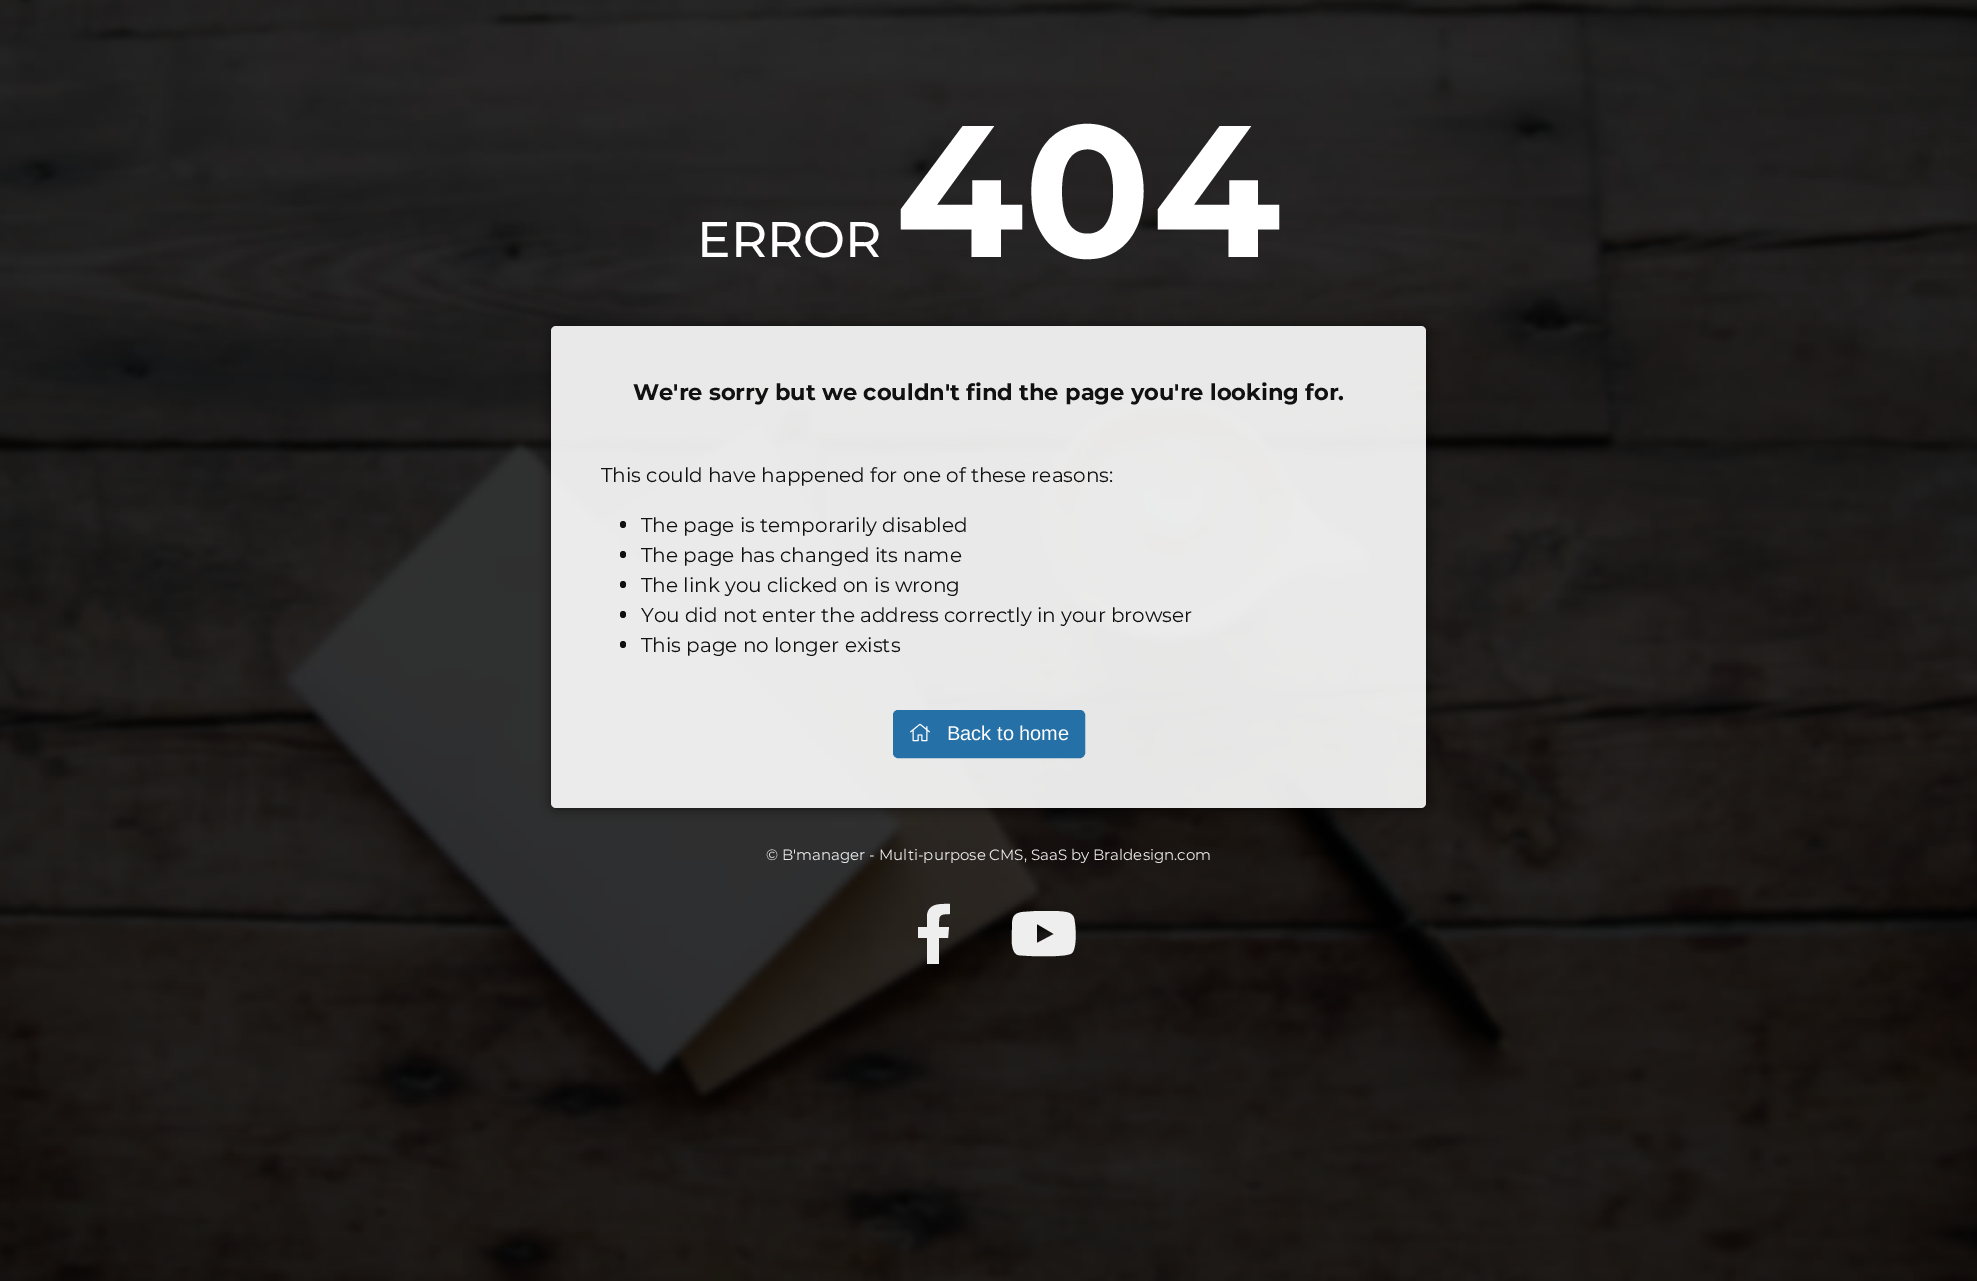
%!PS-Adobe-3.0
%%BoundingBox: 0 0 1977 1281
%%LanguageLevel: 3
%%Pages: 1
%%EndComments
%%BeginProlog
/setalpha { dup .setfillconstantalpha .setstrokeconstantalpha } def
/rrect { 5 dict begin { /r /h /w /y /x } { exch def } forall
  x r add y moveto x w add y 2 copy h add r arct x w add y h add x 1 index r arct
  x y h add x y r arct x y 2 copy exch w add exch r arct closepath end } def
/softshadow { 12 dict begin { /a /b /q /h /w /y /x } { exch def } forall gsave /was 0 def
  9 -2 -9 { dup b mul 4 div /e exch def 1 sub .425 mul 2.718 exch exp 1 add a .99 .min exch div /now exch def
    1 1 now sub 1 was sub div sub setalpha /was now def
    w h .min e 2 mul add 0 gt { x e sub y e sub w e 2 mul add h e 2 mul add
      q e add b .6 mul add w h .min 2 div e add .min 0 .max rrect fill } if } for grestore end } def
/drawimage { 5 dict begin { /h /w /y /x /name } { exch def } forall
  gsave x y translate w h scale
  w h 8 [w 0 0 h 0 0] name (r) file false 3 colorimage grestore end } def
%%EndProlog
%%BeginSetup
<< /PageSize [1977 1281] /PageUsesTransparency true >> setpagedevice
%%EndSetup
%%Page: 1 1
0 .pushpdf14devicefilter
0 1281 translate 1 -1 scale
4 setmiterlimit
1 setgray
0 0 1977 1281 rectfill
(images/1.raw) 0 0 1977 1281 drawimage
gsave
newpath 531 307 moveto 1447 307 lineto 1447 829 lineto 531 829 lineto closepath 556 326 moveto 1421 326 lineto 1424 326 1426 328 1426 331 curveto 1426 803 lineto 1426 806 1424 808 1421 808 curveto 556 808 lineto 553 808 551 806 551 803 curveto 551 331 lineto 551 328 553 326 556 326 curveto closepath eoclip newpath
0 setgray
555 331 868 474 1 7.5 1 softshadow
grestore
0.9 setalpha
551 326 875 482 5 rrect fill
1 setalpha
0.067 setgray
620 521 6 7 3 rrect fill
620 551 6 7 3 rrect fill
620 581 6 7 3 rrect fill
620 611 6 7 3 rrect fill
620 641 6 7 3 rrect fill
0.149 0.439 0.659 setrgbcolor
893.5 710.5 191 47 4.5 rrect gsave fill grestore
stroke
(images/2.raw) 910 723 20 19 drawimage
0.933 setgray
newpath 948 938 moveto 939 938 lineto 939 964 lineto 927 964 lineto 927 938 lineto 918 938 lineto 918 927 lineto 927 927 lineto 927 915 lineto 929 903 940 904 950 904 curveto 950 914 lineto 938 914 939 916 939 927 curveto 949 927 lineto closepath fill
newpath 1074 918 moveto 1076 926 1077 948 1072 953 curveto 1067 958 1022 956 1018 955 curveto 1015 954 1014 952 1013 949 curveto 1011 943 1012 935 1012 929 curveto 1012 919 1012 913 1023 912 curveto 1037 911 lineto 1057 911 lineto 1063 912 1072 911 1074 918 curveto closepath 1037 943 moveto 1054 934 lineto 1037 924 lineto closepath fill
/Montserrat-Medium [50 0 0 -50 0 0] selectfont
1 setgray
697 257 moveto (ERROR) show
/Montserrat-Bold [187.5 0 0 -187.5 0 0] selectfont
895 257 moveto (404) show
/Montserrat-Bold [22.5 0 0 -22.5 0 0] selectfont
0.067 setgray
633 400 moveto (We're sorry but we couldn't find the page you're looking for.) show
/Montserrat-Regular [20 0 0 -20 0 0] selectfont
601 482 moveto (This could have happened for one of these reasons:) show
641 532 moveto (The page is temporarily disabled) show
641 562 moveto (The page has changed its name) show
641 592 moveto (The link you clicked on is wrong) show
641 622 moveto (You did not enter the address correctly in your browser) show
641 652 moveto (This page no longer exists) show
/LiberationSans-Regular [20 0 0 -20 0 0] selectfont
1 setgray
947 740 moveto (Back to home) show
/Montserrat-Regular [15 0 0 -15 0 0] selectfont
0.933 setgray
766 860 moveto (© B'manager - Multi-purpose CMS, SaaS by Braldesign.com) show
.poppdf14devicefilter showpage
%%EOF
